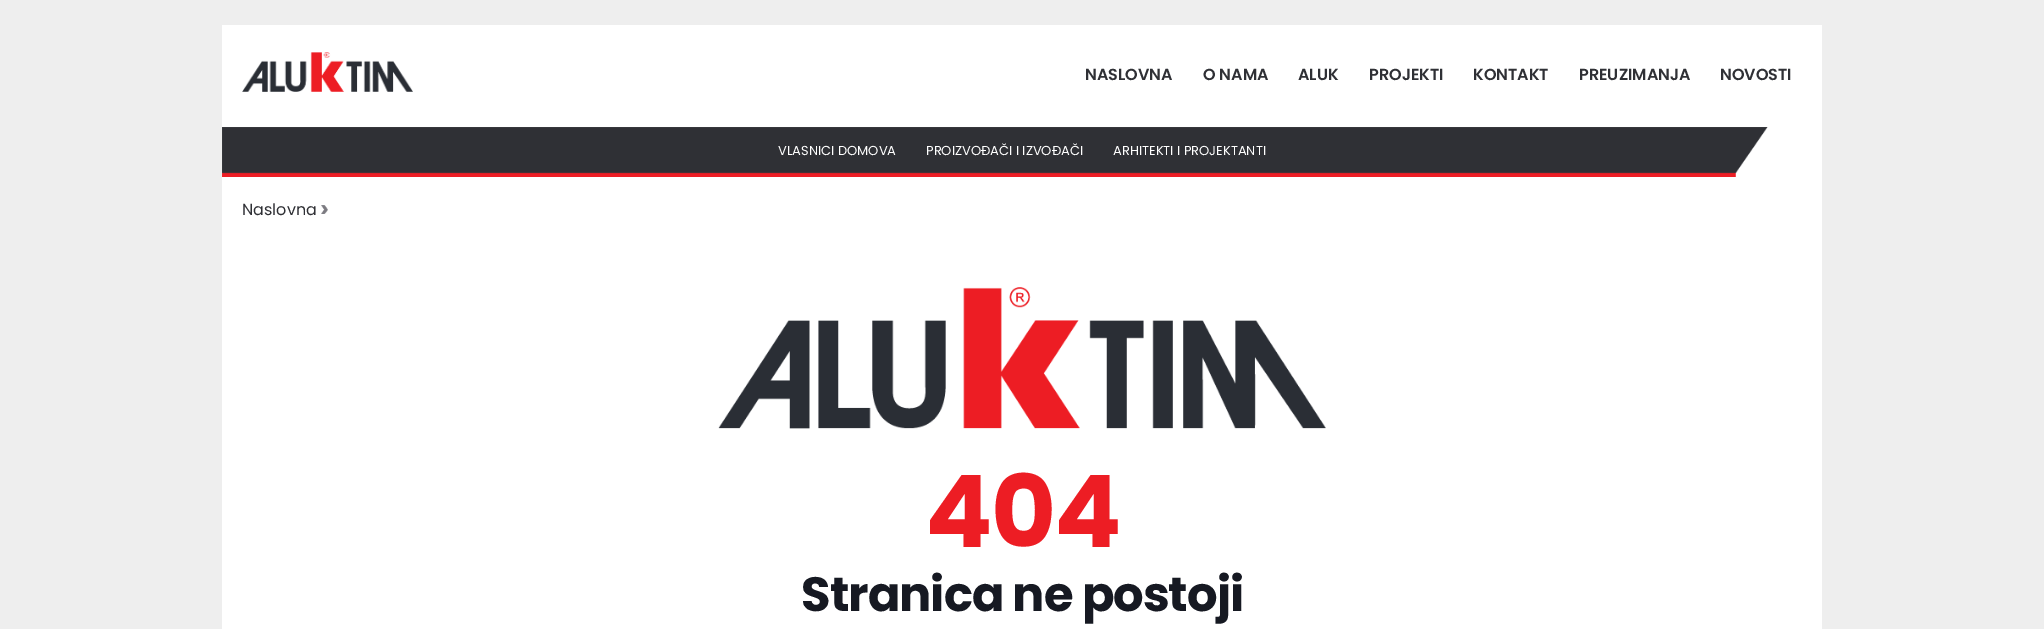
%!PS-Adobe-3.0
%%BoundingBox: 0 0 2044 629
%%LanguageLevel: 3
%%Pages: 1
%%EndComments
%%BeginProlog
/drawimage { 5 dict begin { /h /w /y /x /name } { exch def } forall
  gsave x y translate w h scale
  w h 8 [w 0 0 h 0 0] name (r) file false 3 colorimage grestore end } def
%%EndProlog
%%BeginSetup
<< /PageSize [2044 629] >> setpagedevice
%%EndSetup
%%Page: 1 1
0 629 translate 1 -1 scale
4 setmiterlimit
0.933 setgray
0 0 2044 629 rectfill
1 setgray
222 25 1600 604 rectfill
(images/1.raw) 242 52 171 40 drawimage
(images/2.raw) 222 127 1546 50 drawimage
(images/3.raw) 321 205 7 9 drawimage
(images/4.raw) 718 287 608 142 drawimage
/Poppins-SemiBold [16 0 0 -16 0 0] selectfont
0.184 0.188 0.208 setrgbcolor
1085 80 moveto (NASLOVNA) show
1203 80 moveto (O NAMA) show
1298 80 moveto (ALUK) show
1369 80 moveto (PROJEKTI) show
1473 80 moveto (KONTAKT) show
1579 80 moveto (PREUZIMANJA) show
1720 80 moveto (NOVOSTI) show
/Poppins-Regular [13 0 0 -13 0 0] selectfont
1 setgray
778 155 moveto (VLASNICI DOMOVA) show
926 155 moveto (PROIZVOĐAČI I IZVOĐAČI) show
1113 155 moveto (ARHITEKTI I PROJEKTANTI) show
/Poppins-Regular [16 0 0 -16 0 0] selectfont
0.184 0.188 0.208 setrgbcolor
242 215 moveto (Naslovna) show
/Poppins-Bold [100 0 0 -100 0 0] selectfont
0.929 0.114 0.141 setrgbcolor
925 547 moveto -2 0 (404) ashow
/Poppins-Bold [48 0 0 -48 0 0] selectfont
0.086 0.098 0.133 setrgbcolor
801 611 moveto -1 0 (Stranica ne postoji) ashow
showpage
%%EOF
